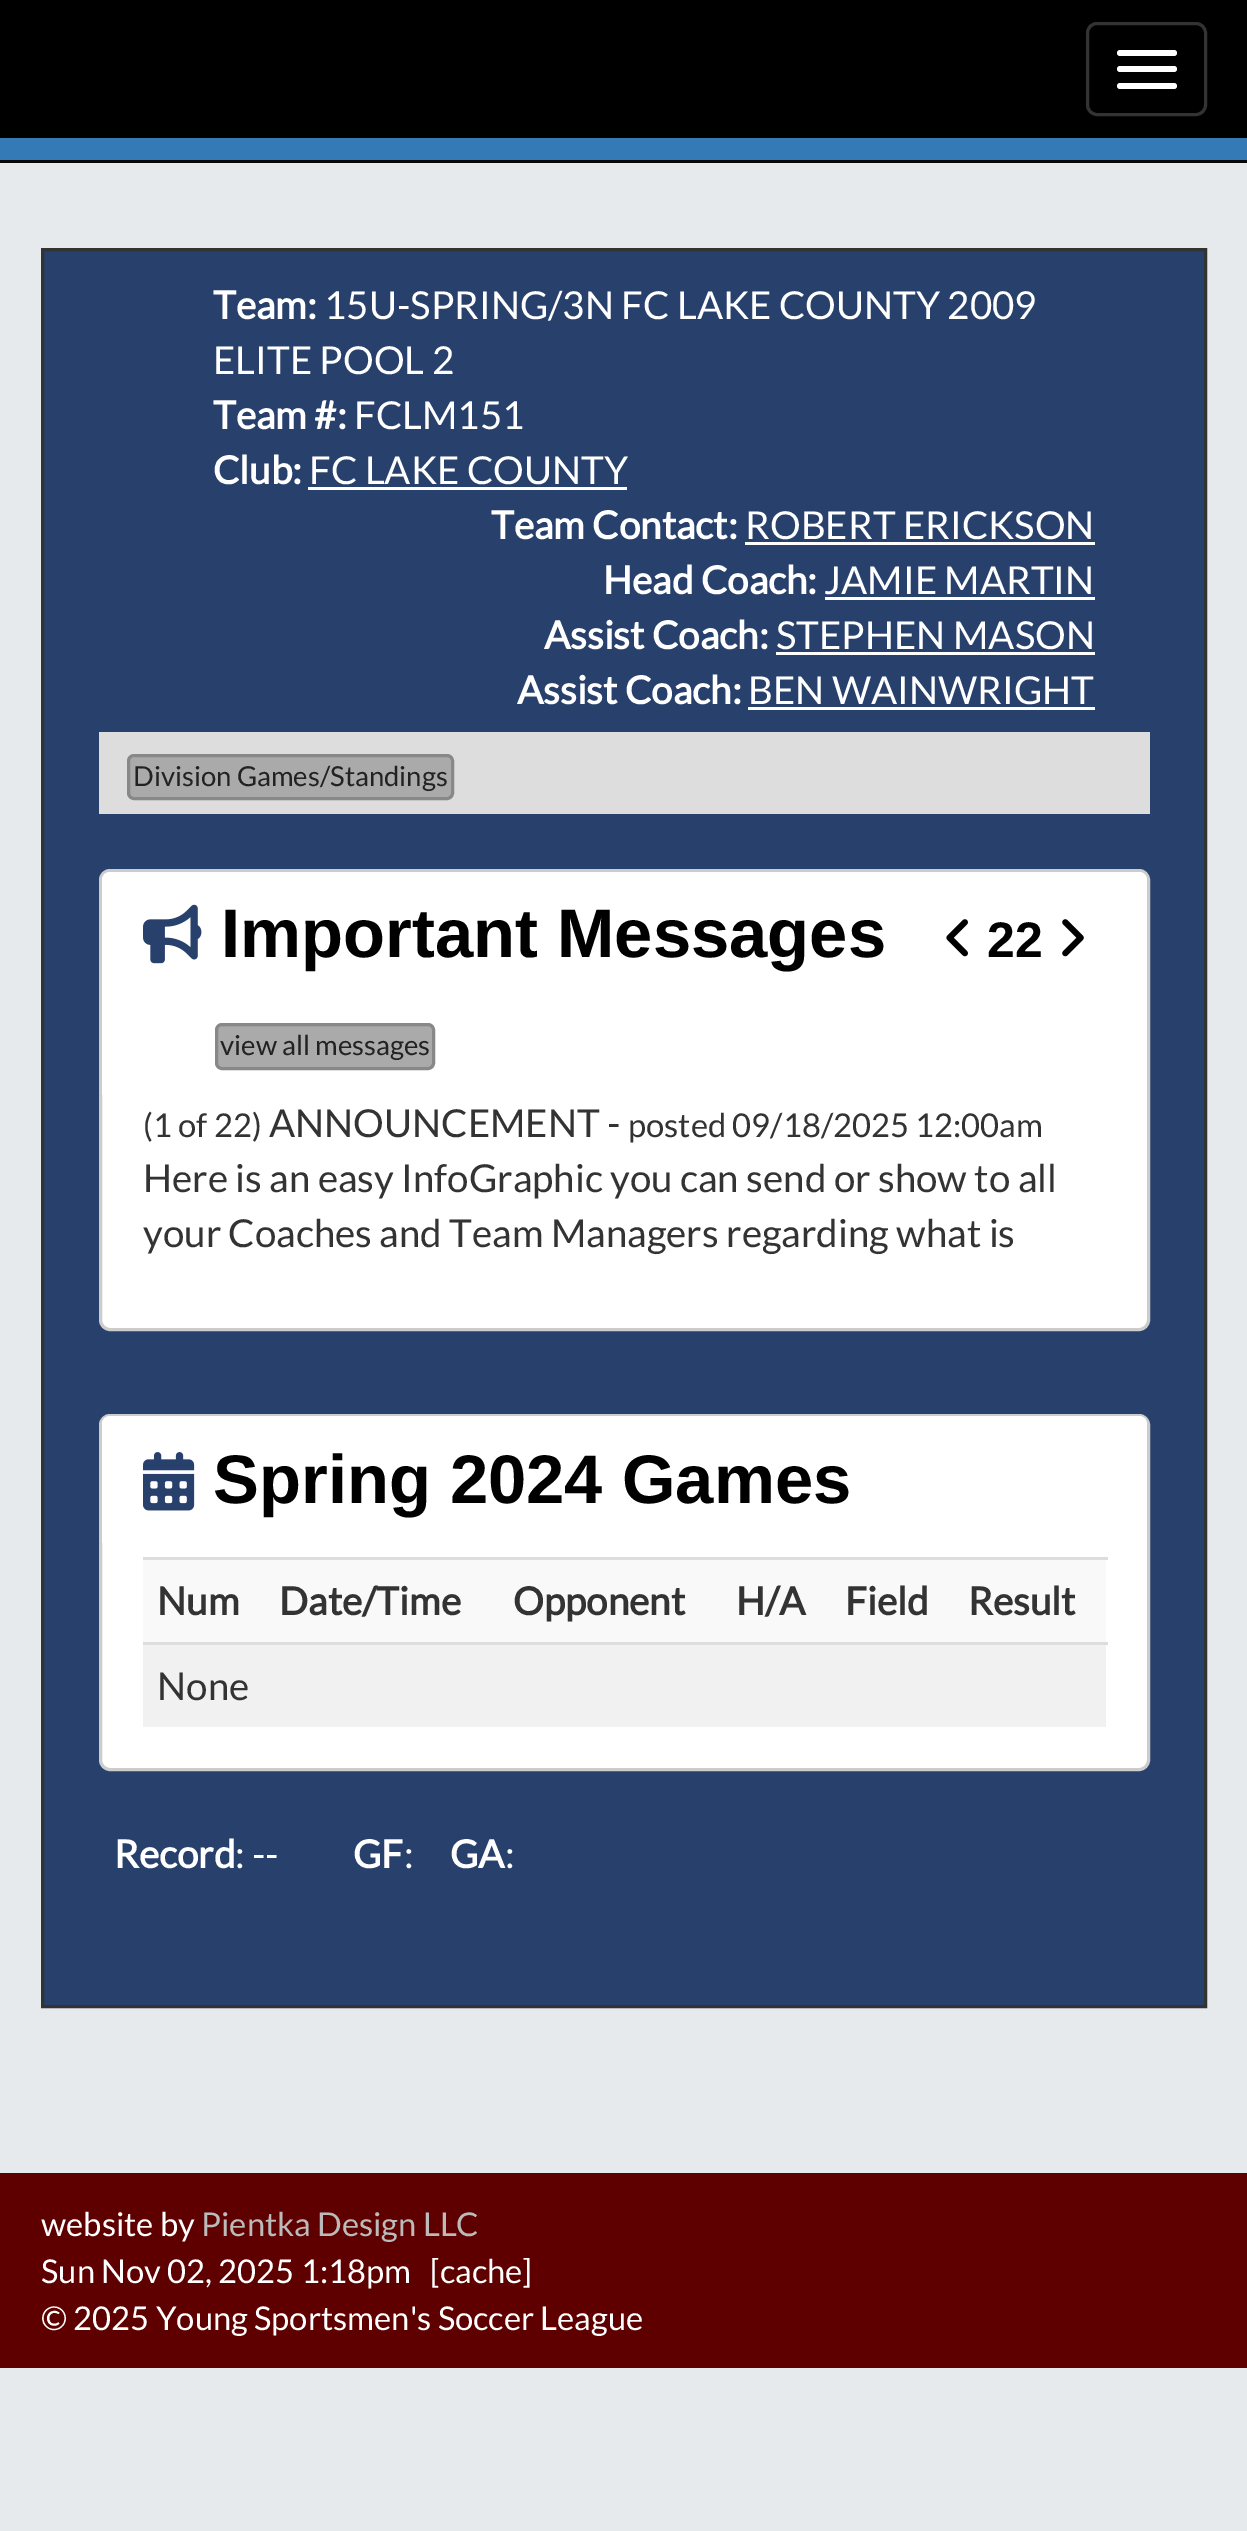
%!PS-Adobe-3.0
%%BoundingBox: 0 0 1247 2531
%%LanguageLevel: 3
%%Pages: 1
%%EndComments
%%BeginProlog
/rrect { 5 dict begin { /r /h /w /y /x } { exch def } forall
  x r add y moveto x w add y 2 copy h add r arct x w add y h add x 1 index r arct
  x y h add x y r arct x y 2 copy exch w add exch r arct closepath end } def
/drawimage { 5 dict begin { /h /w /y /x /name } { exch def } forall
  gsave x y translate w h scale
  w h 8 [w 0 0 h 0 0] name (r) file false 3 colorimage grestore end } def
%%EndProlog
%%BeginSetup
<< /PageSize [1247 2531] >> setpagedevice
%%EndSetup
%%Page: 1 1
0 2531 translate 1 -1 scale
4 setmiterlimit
0.902 0.918 0.925 setrgbcolor
0 0 1247 2531 rectfill
0 setgray
0 0 1247 138 rectfill
0.031 setgray
0 160 1247 3 rectfill
0.2 setgray
3 setlinewidth
1087.5 23.5 118 91 9.5 rrect stroke
1 setgray
1117 50 60 6 3 rrect fill
1117 66 60 6 3 rrect fill
1117 83 60 6 3 rrect fill
0.2 0.478 0.718 setrgbcolor
0 138 1247 22 rectfill
0.157 0.251 0.424 setrgbcolor
newpath 42.5 249.5 moveto 1205.5 249.5 lineto 1205.5 2006.5 lineto 42.5 2006.5 lineto closepath gsave fill grestore
0.2 setgray
stroke
1 setgray
308 487 319 3 rectfill
745 542 350 3 rectfill
825 597 270 3 rectfill
776 652 319 3 rectfill
748 707 347 3 rectfill
0.867 setgray
99 732 1051 82 rectfill
0.667 setgray
128.5 755.5 324 43 5.5 rrect gsave fill grestore
0.533 setgray
stroke
1 setgray
100.5 870.5 1048 459 9.5 rrect gsave fill grestore
0.8 setgray
stroke
1 setgray
newpath 110 872 moveto 1139 872 lineto 1143.5 872 1147 875.5 1147 880 curveto 1147 1095 lineto 102 1095 lineto 102 880 lineto 102 875.5 105.5 872 110 872 curveto closepath fill
(images/1.raw) 143 904 59 60 drawimage
(images/2.raw) 946 919 22 38 drawimage
(images/3.raw) 1062 919 22 38 drawimage
0.667 setgray
216.5 1024.5 217 44 5.5 rrect gsave fill grestore
0.533 setgray
stroke
1 setgray
100.5 1415.5 1048 354 9.5 rrect gsave fill grestore
0.8 setgray
stroke
1 setgray
newpath 110 1416 moveto 1139 1416 lineto 1143.5 1416 1147 1419.5 1147 1424 curveto 1147 1543 lineto 102 1543 lineto 102 1424 lineto 102 1419.5 105.5 1416 110 1416 curveto closepath fill
(images/4.raw) 143 1452 52 59 drawimage
0.976 setgray
143 1560 963 82 rectfill
0.867 setgray
143 1557 965 3 rectfill
0.945 setgray
143 1645 963 82 rectfill
0.867 setgray
143 1642 965 3 rectfill
0.369 0 0 setrgbcolor
0 2173 1247 195 rectfill
/Lato-Bold [38.5 0 0 -38.5 0 0] selectfont
1 setgray
213 319 moveto (Team:) show
/Lato-Regular [38.5 0 0 -38.5 0 0] selectfont
324 319 moveto (15U-SPRING/3N FC LAKE COUNTY 2009) show
213 374 moveto (ELITE POOL 2) show
/Lato-Bold [38.5 0 0 -38.5 0 0] selectfont
213 429 moveto (Team #:) show
/Lato-Regular [38.5 0 0 -38.5 0 0] selectfont
354 429 moveto (FCLM151) show
/Lato-Bold [38.5 0 0 -38.5 0 0] selectfont
213 484 moveto (Club:) show
/Lato-Regular [38.5 0 0 -38.5 0 0] selectfont
309 484 moveto (FC LAKE COUNTY) show
/Lato-Bold [38.5 0 0 -38.5 0 0] selectfont
491 539 moveto (Team Contact:) show
/Lato-Regular [38.5 0 0 -38.5 0 0] selectfont
745 539 moveto (ROBERT ERICKSON) show
/Lato-Bold [38.5 0 0 -38.5 0 0] selectfont
603 594 moveto (Head Coach:) show
/Lato-Regular [38.5 0 0 -38.5 0 0] selectfont
824 594 moveto (JAMIE MARTIN) show
/Lato-Bold [38.5 0 0 -38.5 0 0] selectfont
544 649 moveto (Assist Coach:) show
/Lato-Regular [38.5 0 0 -38.5 0 0] selectfont
776 649 moveto (STEPHEN MASON) show
/Lato-Bold [38.5 0 0 -38.5 0 0] selectfont
517 704 moveto (Assist Coach:) show
/Lato-Regular [38.5 0 0 -38.5 0 0] selectfont
748 704 moveto (BEN WAINWRIGHT) show
/Lato-Regular [27.5 0 0 -27.5 0 0] selectfont
0.133 setgray
133 786 moveto (Division Games/Standings) show
/LiberationSans-Bold [68.75 0 0 -68.75 0 0] selectfont
0 setgray
221 957 moveto (Important Messages) show
/LiberationSans-Bold [50 0 0 -50 0 0] selectfont
987 957 moveto (22) show
/Lato-Regular [27.5 0 0 -27.5 0 0] selectfont
0.133 setgray
220 1055 moveto (view all messages) show
/Lato-Regular [32.75 0 0 -32.75 0 0] selectfont
0.2 setgray
143 1137 moveto (\(1 of 22\)) show
/Lato-Regular [38.5 0 0 -38.5 0 0] selectfont
269 1137 moveto (ANNOUNCEMENT -) show
/Lato-Regular [32.75 0 0 -32.75 0 0] selectfont
628 1137 moveto (posted 09/18/2025 12:00am) show
/Lato-Regular [38.5 0 0 -38.5 0 0] selectfont
143 1192 moveto (Here is an easy InfoGraphic you can send or show to all) show
143 1247 moveto (your Coaches and Team Managers regarding what is) show
/LiberationSans-Bold [68.75 0 0 -68.75 0 0] selectfont
0 setgray
213 1503 moveto (Spring 2024 Games) show
/Lato-Bold [38.5 0 0 -38.5 0 0] selectfont
0.2 setgray
157 1615 moveto (Num) show
279 1615 moveto (Date/Time) show
513 1615 moveto (Opponent) show
736 1615 moveto (H/A) show
845 1615 moveto (Field) show
968 1615 moveto (Result) show
/Lato-Regular [38.5 0 0 -38.5 0 0] selectfont
157 1700 moveto (None) show
/Lato-Bold [38.5 0 0 -38.5 0 0] selectfont
1 setgray
114 1868 moveto (Record) show
/Lato-Regular [38.5 0 0 -38.5 0 0] selectfont
235 1868 moveto (: --) show
/Lato-Bold [38.5 0 0 -38.5 0 0] selectfont
353 1868 moveto (GF) show
/Lato-Regular [38.5 0 0 -38.5 0 0] selectfont
404 1868 moveto (:) show
/Lato-Bold [38.5 0 0 -38.5 0 0] selectfont
450 1868 moveto (GA) show
/Lato-Regular [38.5 0 0 -38.5 0 0] selectfont
505 1868 moveto (:) show
/Lato-Regular [32.75 0 0 -32.75 0 0] selectfont
41 2236 moveto (website by) show
0.733 setgray
201 2236 moveto (Pientka Design LLC) show
1 setgray
41 2283 moveto (Sun Nov 02, 2025 1:18pm   [cache]) show
41 2330 moveto (© 2025 Young Sportsmen's Soccer League) show
showpage
%%EOF
